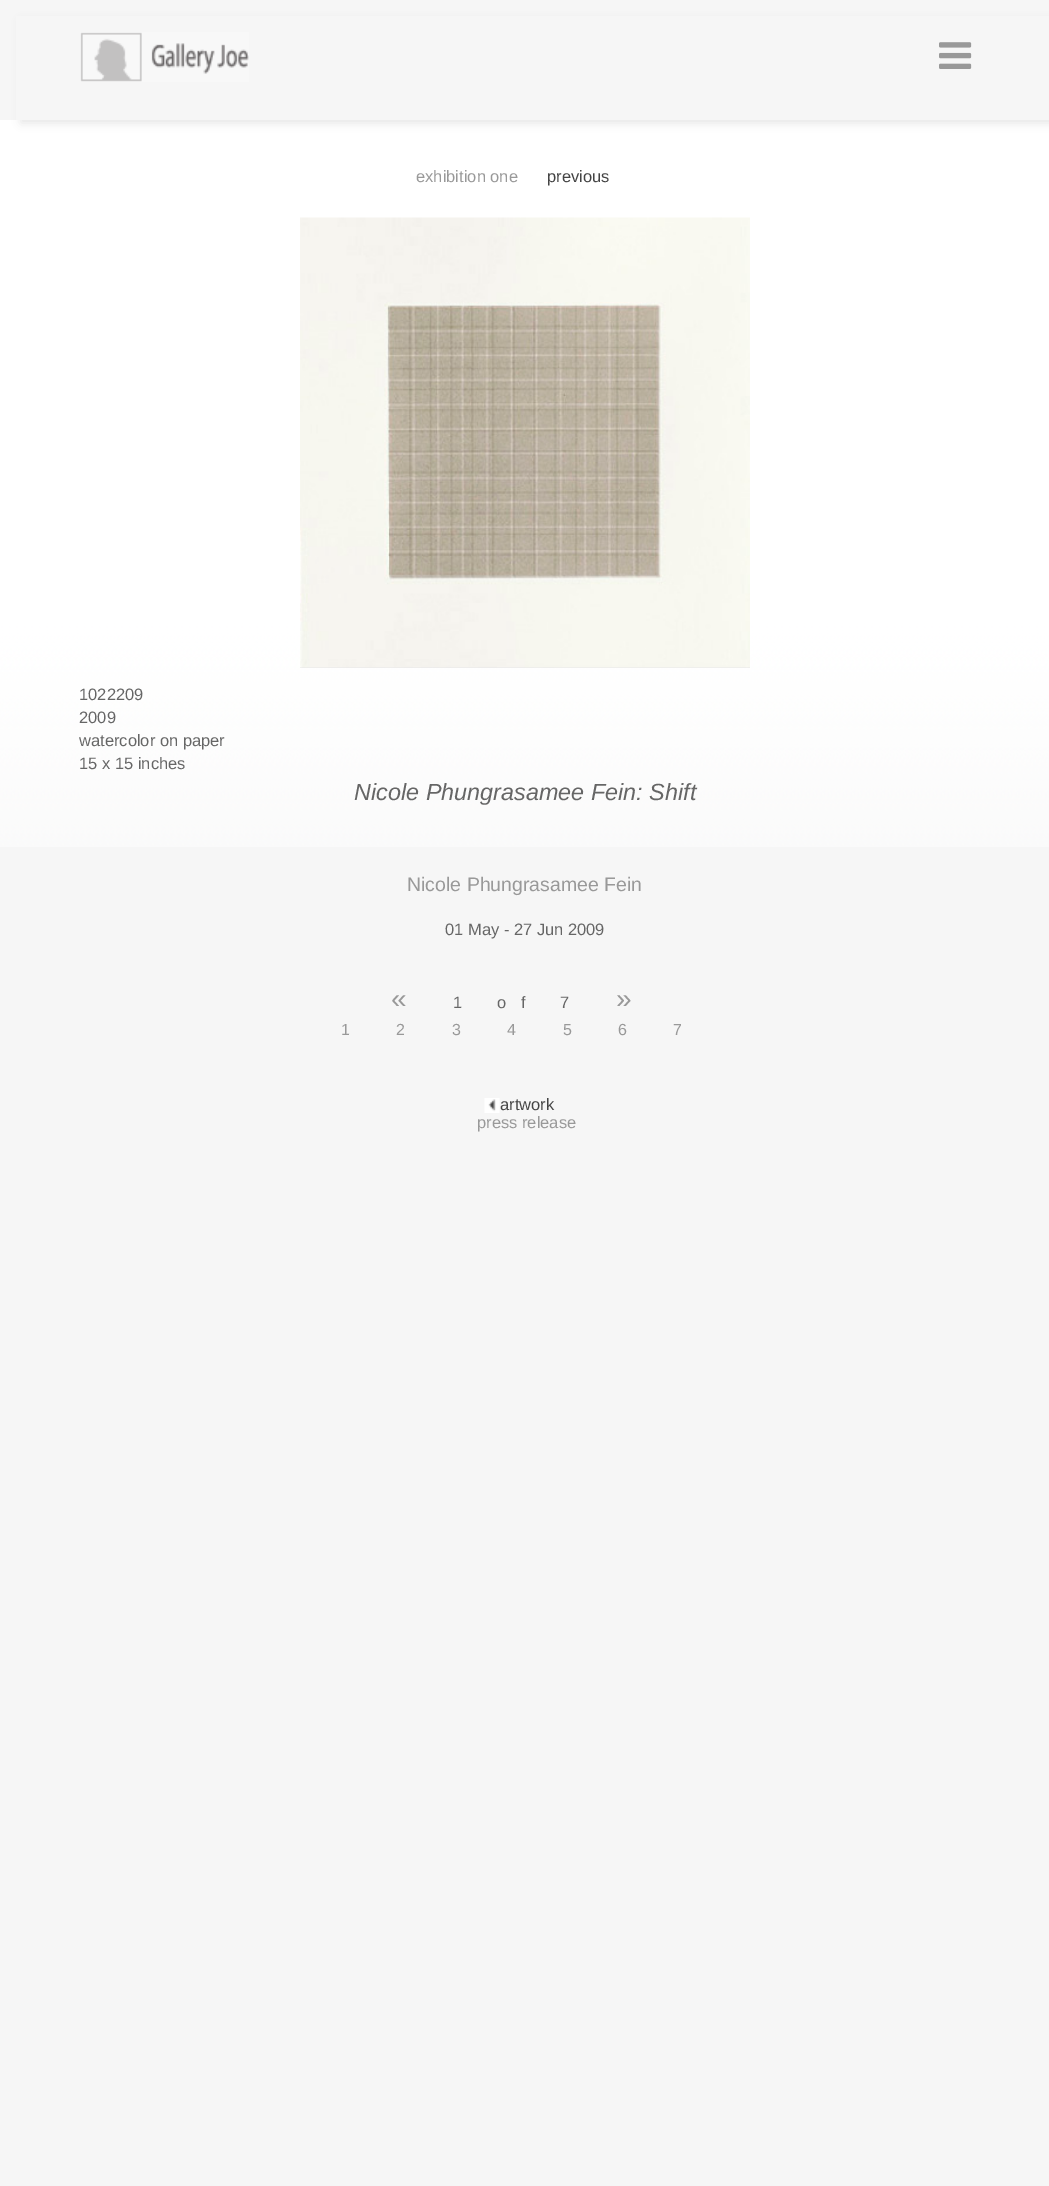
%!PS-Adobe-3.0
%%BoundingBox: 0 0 1049 2186
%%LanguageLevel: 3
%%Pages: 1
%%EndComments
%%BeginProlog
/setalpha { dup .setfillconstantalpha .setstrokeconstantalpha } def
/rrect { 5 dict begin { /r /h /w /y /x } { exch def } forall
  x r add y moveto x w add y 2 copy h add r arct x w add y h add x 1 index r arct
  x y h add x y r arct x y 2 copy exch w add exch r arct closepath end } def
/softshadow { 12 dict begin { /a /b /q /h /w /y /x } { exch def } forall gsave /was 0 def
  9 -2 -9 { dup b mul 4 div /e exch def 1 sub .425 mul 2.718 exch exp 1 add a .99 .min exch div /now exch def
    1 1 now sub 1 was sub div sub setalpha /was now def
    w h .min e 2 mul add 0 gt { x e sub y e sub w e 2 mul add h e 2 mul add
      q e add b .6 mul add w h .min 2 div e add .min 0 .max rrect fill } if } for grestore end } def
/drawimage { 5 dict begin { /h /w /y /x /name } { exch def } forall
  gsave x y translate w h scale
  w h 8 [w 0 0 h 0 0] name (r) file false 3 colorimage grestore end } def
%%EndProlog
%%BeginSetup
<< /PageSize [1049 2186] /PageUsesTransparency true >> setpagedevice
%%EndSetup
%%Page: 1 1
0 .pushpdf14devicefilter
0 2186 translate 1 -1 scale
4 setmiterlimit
0.965 setgray
0 0 1049 2186 rectfill
(images/1.raw) 0 120 1049 727 drawimage
0.671 setgray
21 21 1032 102 0 4.5 0.3 softshadow
0.965 setgray
16 16 1033 104 rectfill
(images/2.raw) 80 32 169 50 drawimage
(images/3.raw) 939 42 33 27 drawimage
0.906 0.906 0.91 setrgbcolor
300 667 450 1 rectfill
(images/4.raw) 300 217 450 451 drawimage
(images/5.raw) 484 1098 16 15 drawimage
/LiberationSans-Regular [16.5 0 0 -16.5 0 0] selectfont
0.6 setgray
416 182 moveto (exhibition one) show
0.267 setgray
547 182 moveto (previous) show
0.4 setgray
79 700 moveto (1022209) show
79 723 moveto (2009) show
79 746 moveto (watercolor on paper) show
79 769 moveto (15 x 15 inches) show
/LiberationSans-Italic [23.4 0 0 -23.4 0 0] selectfont
354 800 moveto (Nicole Phungrasamee Fein: Shift) show
/LiberationSans-Regular [19.5 0 0 -19.5 0 0] selectfont
0.6 setgray
407 891 moveto (Nicole Phungrasamee Fein) show
/LiberationSans-Regular [16.5 0 0 -16.5 0 0] selectfont
0.4 setgray
445 935 moveto (01 May - 27 Jun 2009) show
/LiberationSans-Regular [28 0 0 -28 0 0] selectfont
0.6 setgray
391 1008 moveto 15 0 («) ashow
/LiberationSans-Regular [16.5 0 0 -16.5 0 0] selectfont
0.4 setgray
453 1008 moveto 15 0 (1 of 7) ashow
/LiberationSans-Regular [28 0 0 -28 0 0] selectfont
0.6 setgray
616 1008 moveto 15 0 (») ashow
/LiberationSans-Regular [16 0 0 -16 0 0] selectfont
341 1035 moveto 15 0 (1) ashow
396 1035 moveto 15 0 (2) ashow
452 1035 moveto 15 0 (3) ashow
507 1035 moveto 15 0 (4) ashow
563 1035 moveto 15 0 (5) ashow
618 1035 moveto 15 0 (6) ashow
673 1035 moveto 15 0 (7) ashow
/LiberationSans-Regular [16.5 0 0 -16.5 0 0] selectfont
0.267 setgray
500 1110 moveto (artwork) show
0.6 setgray
477 1128 moveto (press release) show
.poppdf14devicefilter showpage
%%EOF
